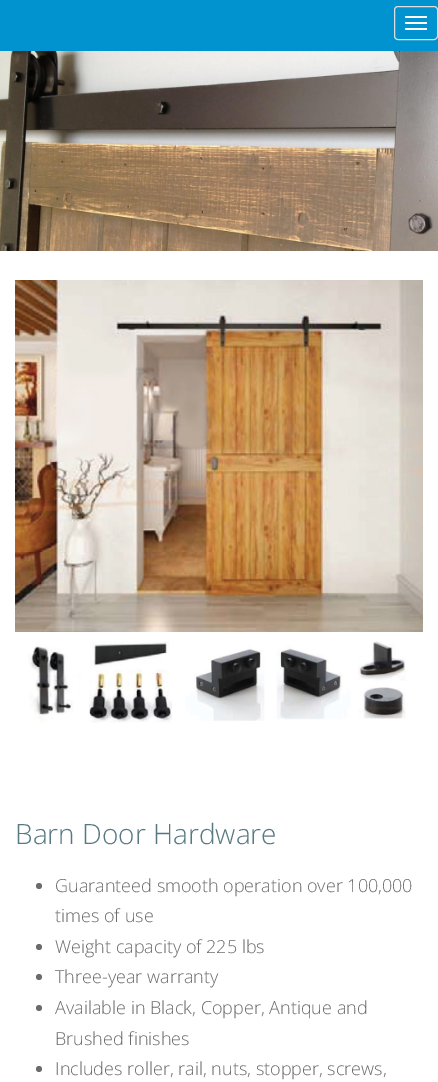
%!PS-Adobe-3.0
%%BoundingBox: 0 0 438 1082
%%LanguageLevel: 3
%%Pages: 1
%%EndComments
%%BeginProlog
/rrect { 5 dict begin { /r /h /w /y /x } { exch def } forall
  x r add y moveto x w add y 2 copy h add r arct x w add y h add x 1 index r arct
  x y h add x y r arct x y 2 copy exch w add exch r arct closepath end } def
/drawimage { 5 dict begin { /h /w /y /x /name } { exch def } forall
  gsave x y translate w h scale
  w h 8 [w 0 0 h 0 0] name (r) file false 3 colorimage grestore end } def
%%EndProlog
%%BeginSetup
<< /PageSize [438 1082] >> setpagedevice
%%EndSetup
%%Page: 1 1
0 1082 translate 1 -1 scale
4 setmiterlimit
1 setgray
0 0 438 1082 rectfill
0 0.576 0.816 setrgbcolor
0 0 438 51 rectfill
0.867 setgray
394.5 6.5 43 33 3.5 rrect stroke
1 setgray
405 16 22 2 1 rrect fill
405 22 22 2 1 rrect fill
405 28 22 2 1 rrect fill
(images/1.raw) 0 51 438 200 drawimage
(images/2.raw) 15 280 408 352 drawimage
(images/3.raw) 28 641 378 82 drawimage
0.42 setgray
newpath 39 886 3 0 360 arc closepath fill
newpath 39 947 3 0 360 arc closepath fill
newpath 39 977 3 0 360 arc closepath fill
newpath 39 1008 3 0 360 arc closepath fill
newpath 39 1069 3 0 360 arc closepath fill
/OpenSans-Light [28 0 0 -28 0 0] selectfont
0.345 0.475 0.51 setrgbcolor
15 844 moveto (Barn Door Hardware) show
/OpenSans-Light [18 0 0 -18 0 0] selectfont
0.42 setgray
55 892 moveto (Guaranteed smooth operation over 100,000) show
55 922 moveto (times of use) show
55 953 moveto (Weight capacity of 225 lbs) show
55 983 moveto (Three-year warranty) show
55 1014 moveto (Available in Black, Copper, Antique and) show
55 1045 moveto (Brushed finishes) show
55 1075 moveto (Includes roller, rail, nuts, stopper, screws,) show
showpage
%%EOF
